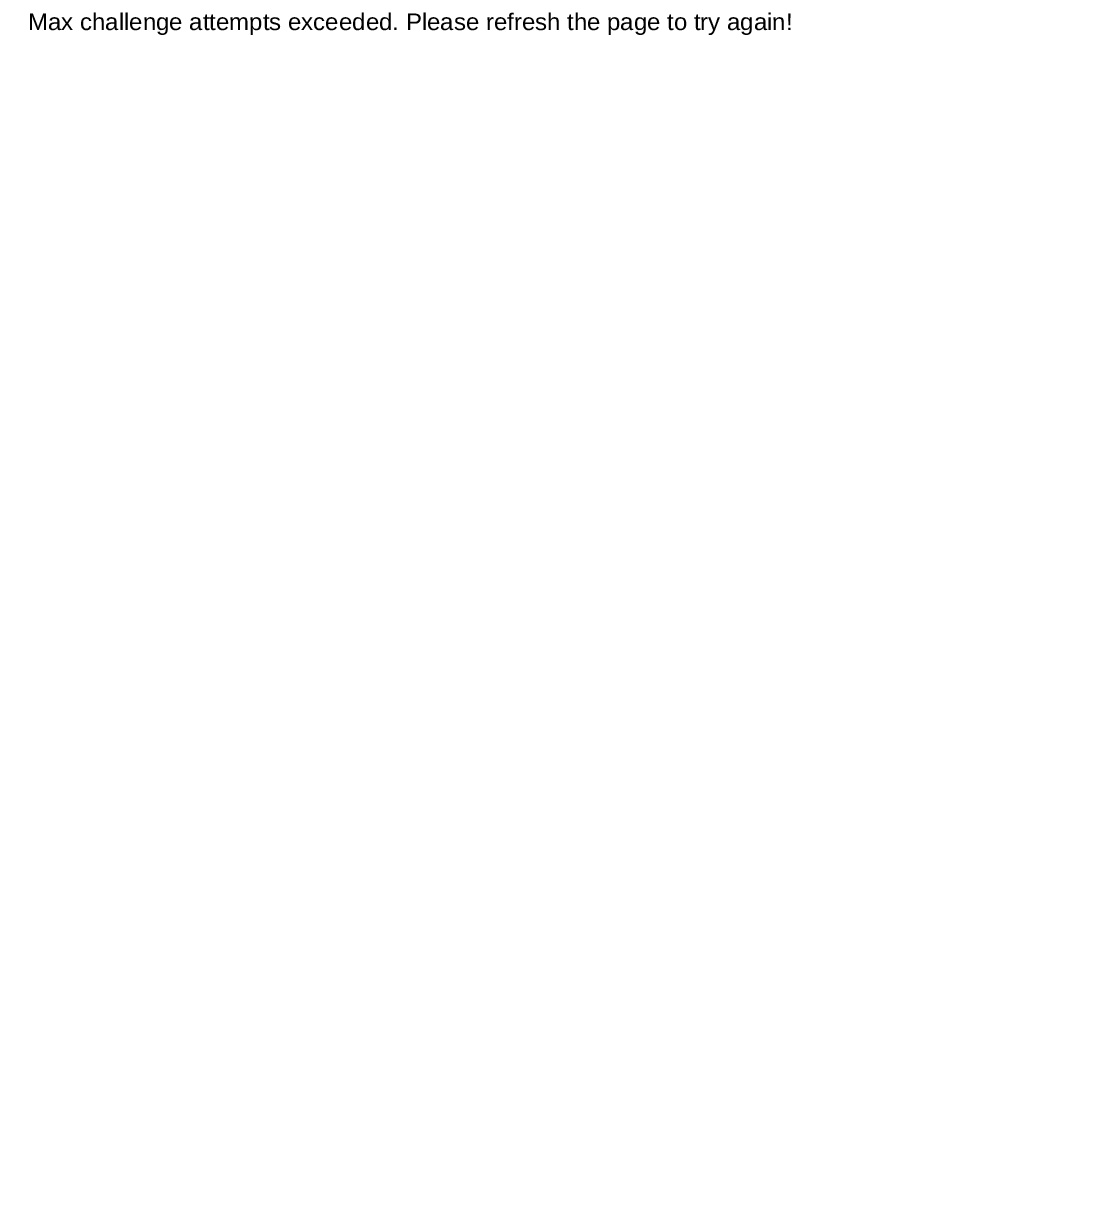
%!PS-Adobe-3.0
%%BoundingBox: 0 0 1106 1225
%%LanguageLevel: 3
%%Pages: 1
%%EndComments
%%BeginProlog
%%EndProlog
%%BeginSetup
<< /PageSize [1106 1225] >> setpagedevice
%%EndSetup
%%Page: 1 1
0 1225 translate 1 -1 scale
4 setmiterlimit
1 setgray
0 0 1106 1225 rectfill
/LiberationSans-Regular [24 0 0 -24 0 0] selectfont
0 setgray
28 30 moveto (Max challenge attempts exceeded. Please refresh the page to try again!) show
showpage
%%EOF
